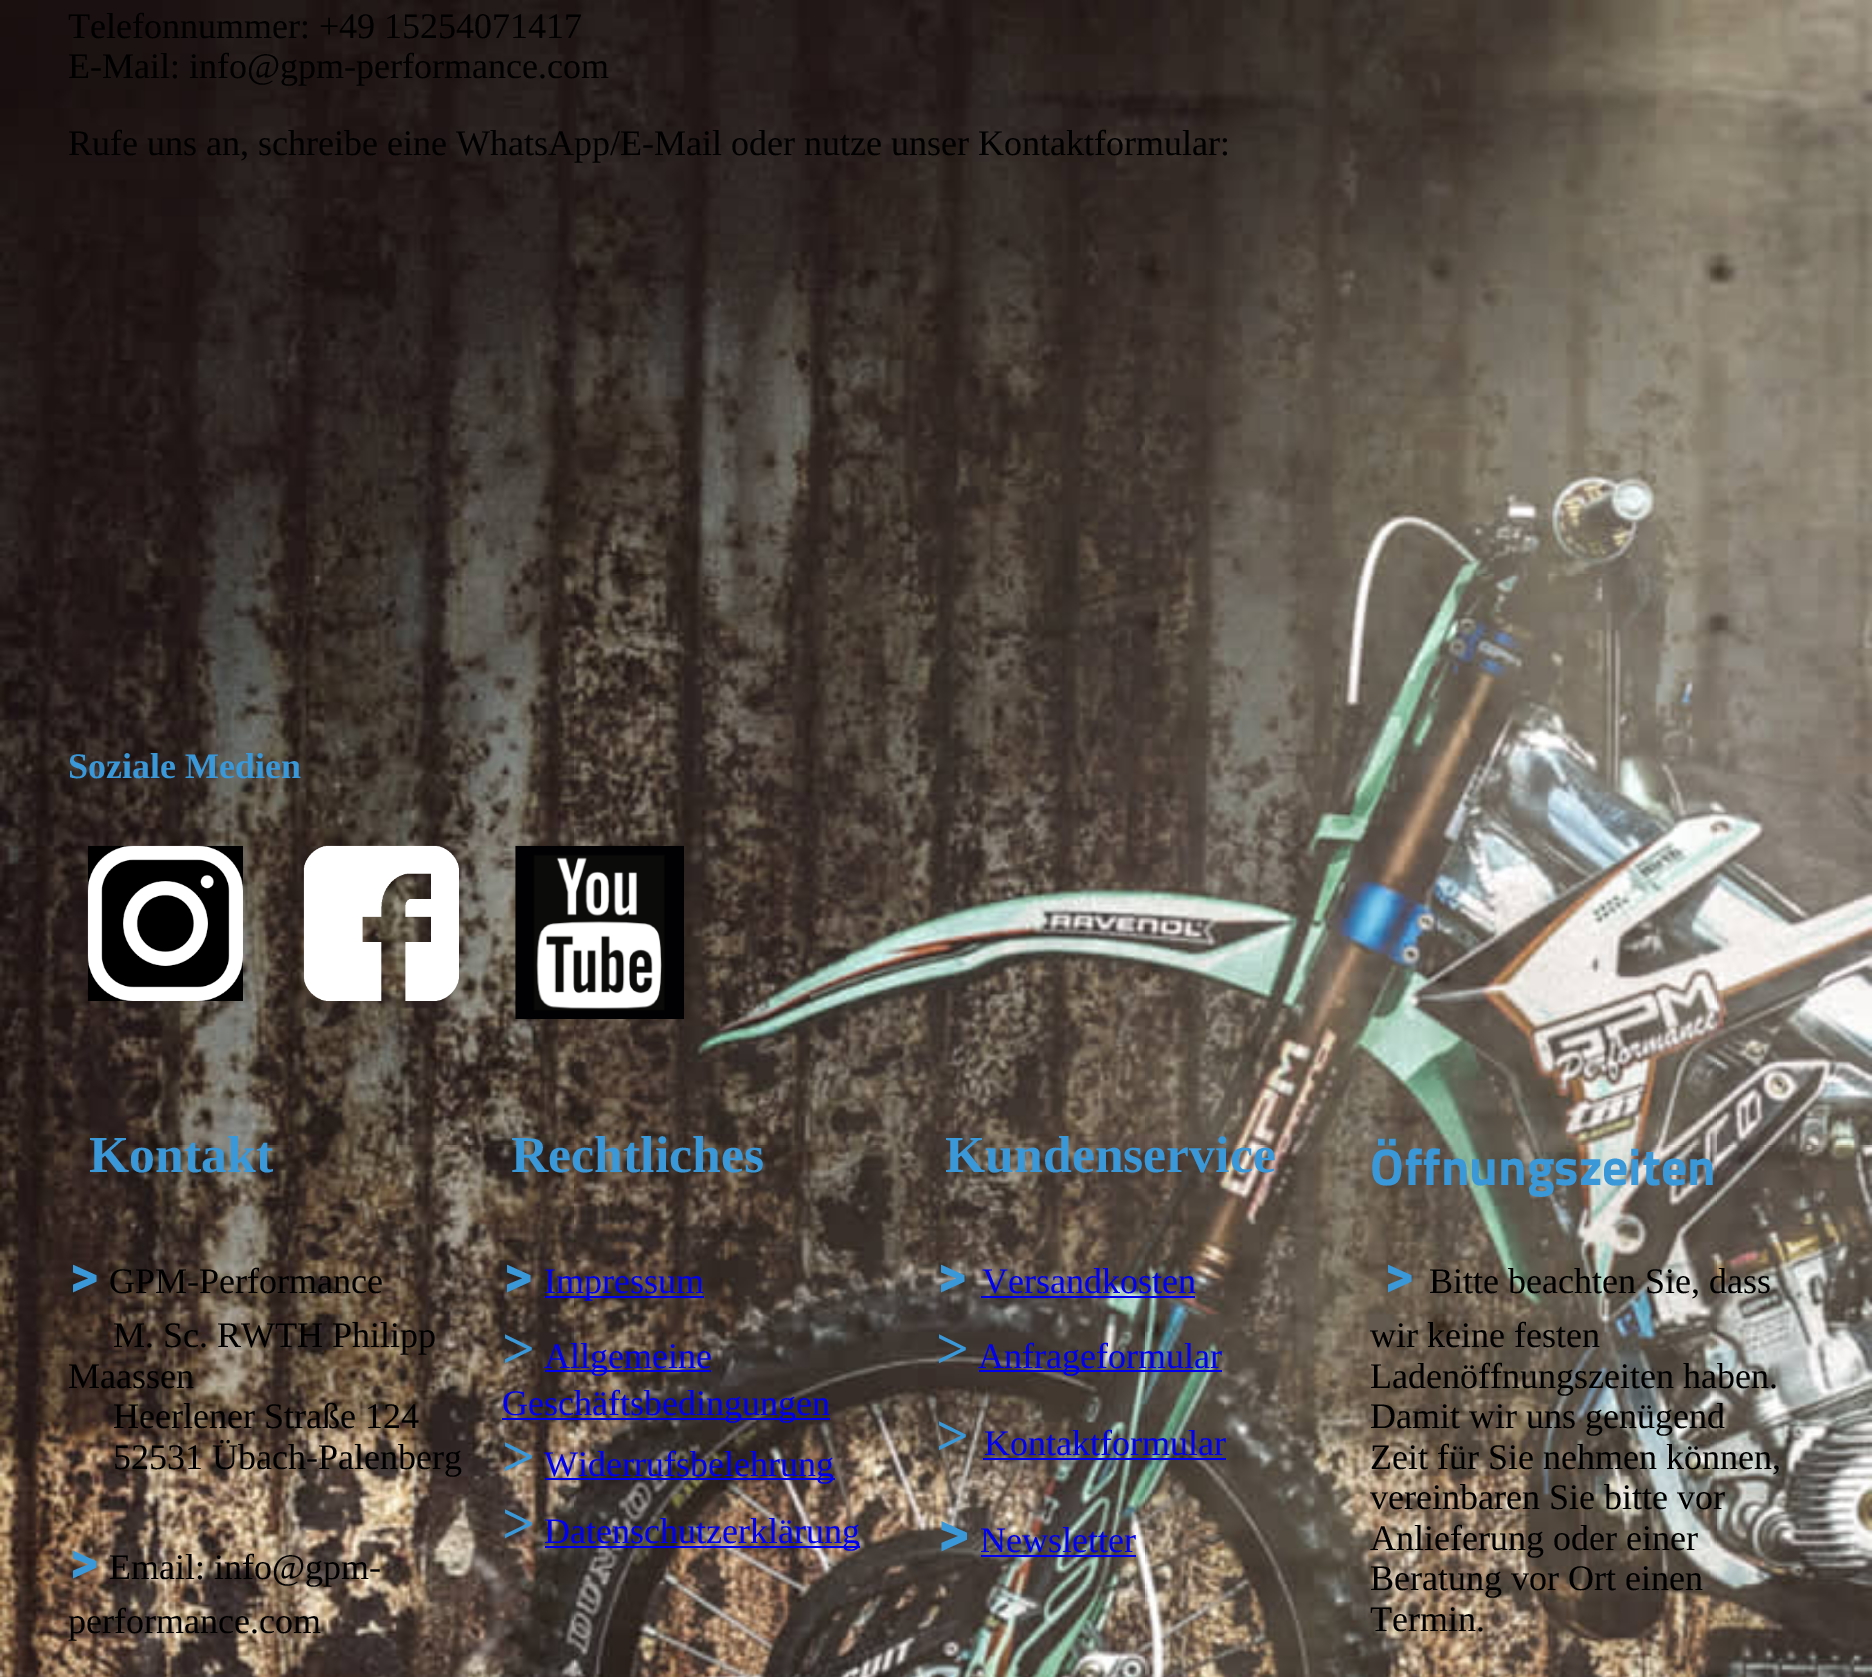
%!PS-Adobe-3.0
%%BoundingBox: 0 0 1872 1677
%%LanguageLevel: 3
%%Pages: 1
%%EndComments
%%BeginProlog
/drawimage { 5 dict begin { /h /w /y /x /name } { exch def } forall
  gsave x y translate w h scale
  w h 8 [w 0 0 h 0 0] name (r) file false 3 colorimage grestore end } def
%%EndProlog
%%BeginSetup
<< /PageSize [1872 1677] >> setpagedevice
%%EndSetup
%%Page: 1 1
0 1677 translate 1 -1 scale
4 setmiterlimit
1 setgray
0 0 1872 1677 rectfill
(images/1.raw) 0 0 1872 1677 drawimage
(images/2.raw) 87 845 156 156 drawimage
(images/3.raw) 303 845 156 156 drawimage
(images/4.raw) 515 845 169 174 drawimage
0 0 0.933 setrgbcolor
545 1296 159 2 rectfill
545 1370 166 2 rectfill
502 1418 328 2 rectfill
545 1478 290 2 rectfill
545 1546 315 2 rectfill
981 1296 214 2 rectfill
979 1370 243 2 rectfill
983 1458 243 2 rectfill
981 1555 155 2 rectfill
/LiberationSerif-Regular [36 0 0 -36 0 0] selectfont
0 setgray
68 38 moveto (Telefonnummer: +49 15254071417) show
68 78 moveto (E-Mail: info@gpm-performance.com) show
68 155 moveto (Rufe uns an, schreibe eine WhatsApp/E-Mail oder nutze unser Kontaktformular:) show
/LiberationSerif-Bold [36 0 0 -36 0 0] selectfont
0.227 0.596 0.851 setrgbcolor
68 778 moveto (Soziale Medien) show
/LiberationSerif-Bold [51.75 0 0 -51.75 0 0] selectfont
89 1172 moveto (Kontakt) show
511 1172 moveto (Rechtliches) show
945 1172 moveto (Kundenservice) show
/TitilliumWeb-Bold [51.75 0 0 -51.75 0 0] selectfont
1370 1185 moveto (Öffnungszeiten) show
/TitilliumWeb-Bold [58 0 0 -58 0 0] selectfont
68 1293 moveto (>) show
/LiberationSerif-Regular [36 0 0 -36 0 0] selectfont
0 setgray
109 1293 moveto (GPM-Performance) show
113 1347 moveto (M. Sc. RWTH Philipp) show
68 1388 moveto (Maassen) show
113 1428 moveto (Heerlener Straße 124) show
113 1469 moveto (52531 Übach-Palenberg) show
/TitilliumWeb-Bold [58 0 0 -58 0 0] selectfont
0.227 0.596 0.851 setrgbcolor
68 1579 moveto (>) show
/LiberationSerif-Regular [36 0 0 -36 0 0] selectfont
0 setgray
109 1579 moveto (Email: info@gpm-) show
68 1633 moveto (performance.com) show
/TitilliumWeb-Bold [58 0 0 -58 0 0] selectfont
0.227 0.596 0.851 setrgbcolor
502 1293 moveto (>) show
/LiberationSerif-Regular [36 0 0 -36 0 0] selectfont
0 0 0.933 setrgbcolor
544 1293 moveto (Impressum) show
/LiberationSerif-Bold [58 0 0 -58 0 0] selectfont
0.227 0.596 0.851 setrgbcolor
502 1368 moveto (>) show
/LiberationSerif-Regular [36 0 0 -36 0 0] selectfont
0 0 0.933 setrgbcolor
544 1368 moveto (Allgemeine) show
502 1415 moveto (Geschäftsbedingungen) show
/LiberationSerif-Bold [58 0 0 -58 0 0] selectfont
0.227 0.596 0.851 setrgbcolor
502 1476 moveto (>) show
/LiberationSerif-Regular [36 0 0 -36 0 0] selectfont
0 0 0.933 setrgbcolor
544 1476 moveto (Widerrufsbelehrung) show
/LiberationSerif-Bold [58 0 0 -58 0 0] selectfont
0.227 0.596 0.851 setrgbcolor
502 1543 moveto (>) show
/LiberationSerif-Regular [36 0 0 -36 0 0] selectfont
0 0 0.933 setrgbcolor
544 1543 moveto (Datenschutzerklärung) show
/TitilliumWeb-Bold [58 0 0 -58 0 0] selectfont
0.227 0.596 0.851 setrgbcolor
936 1293 moveto (>) show
/LiberationSerif-Regular [36 0 0 -36 0 0] selectfont
0 0 0.933 setrgbcolor
982 1293 moveto (Versandkosten) show
/LiberationSerif-Bold [58 0 0 -58 0 0] selectfont
0.227 0.596 0.851 setrgbcolor
936 1368 moveto (>) show
/LiberationSerif-Regular [36 0 0 -36 0 0] selectfont
0 0 0.933 setrgbcolor
978 1368 moveto (Anfrageformular) show
/LiberationSerif-Bold [58 0 0 -58 0 0] selectfont
0.227 0.596 0.851 setrgbcolor
936 1455 moveto (>) show
/LiberationSerif-Regular [36 0 0 -36 0 0] selectfont
0 0 0.933 setrgbcolor
984 1455 moveto (Kontaktformular) show
/TitilliumWeb-Bold [63 0 0 -63 0 0] selectfont
0.227 0.596 0.851 setrgbcolor
936 1552 moveto (>) show
/LiberationSerif-Regular [36 0 0 -36 0 0] selectfont
0 0 0.933 setrgbcolor
980 1552 moveto (Newsletter) show
/TitilliumWeb-Bold [58 0 0 -58 0 0] selectfont
0.227 0.596 0.851 setrgbcolor
1383 1293 moveto (>) show
/LiberationSerif-Regular [36 0 0 -36 0 0] selectfont
0 setgray
1429 1293 moveto (Bitte beachten Sie, dass) show
1370 1347 moveto (wir keine festen) show
1370 1388 moveto (Ladenöffnungszeiten haben.) show
1370 1428 moveto (Damit wir uns genügend) show
1370 1469 moveto (Zeit für Sie nehmen können,) show
1370 1509 moveto (vereinbaren Sie bitte vor) show
1370 1550 moveto (Anlieferung oder einer) show
1370 1590 moveto (Beratung vor Ort einen) show
1370 1631 moveto (Termin.) show
showpage
%%EOF
